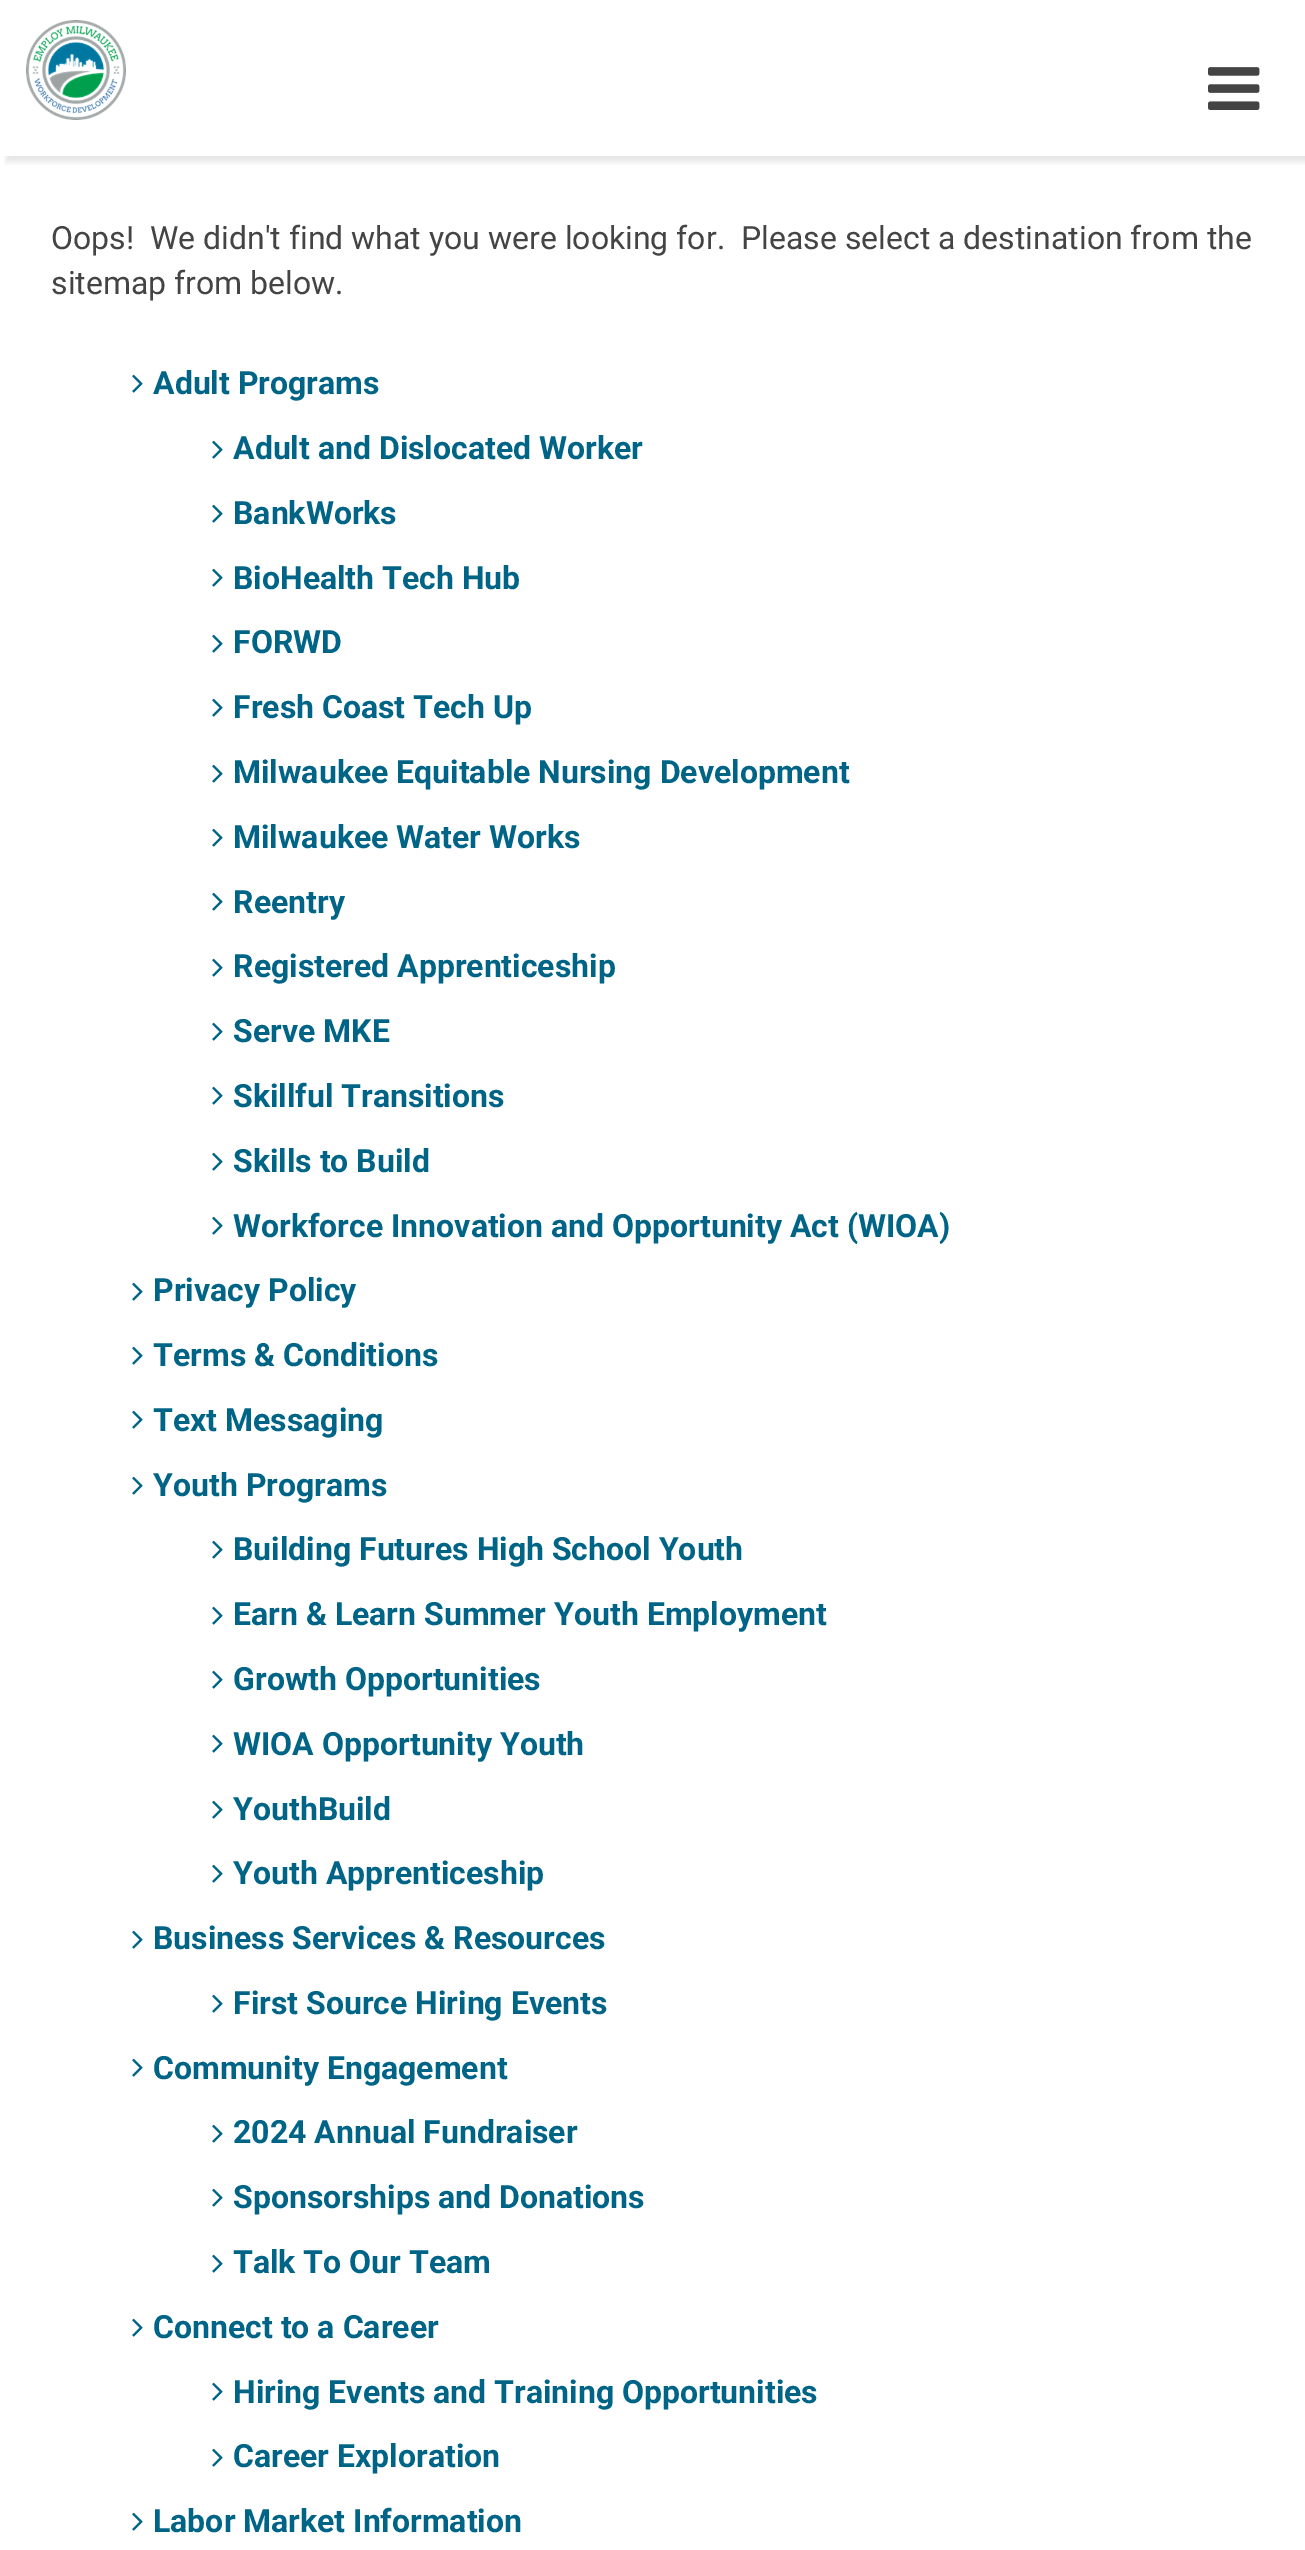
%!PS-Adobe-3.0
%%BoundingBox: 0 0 1305 2550
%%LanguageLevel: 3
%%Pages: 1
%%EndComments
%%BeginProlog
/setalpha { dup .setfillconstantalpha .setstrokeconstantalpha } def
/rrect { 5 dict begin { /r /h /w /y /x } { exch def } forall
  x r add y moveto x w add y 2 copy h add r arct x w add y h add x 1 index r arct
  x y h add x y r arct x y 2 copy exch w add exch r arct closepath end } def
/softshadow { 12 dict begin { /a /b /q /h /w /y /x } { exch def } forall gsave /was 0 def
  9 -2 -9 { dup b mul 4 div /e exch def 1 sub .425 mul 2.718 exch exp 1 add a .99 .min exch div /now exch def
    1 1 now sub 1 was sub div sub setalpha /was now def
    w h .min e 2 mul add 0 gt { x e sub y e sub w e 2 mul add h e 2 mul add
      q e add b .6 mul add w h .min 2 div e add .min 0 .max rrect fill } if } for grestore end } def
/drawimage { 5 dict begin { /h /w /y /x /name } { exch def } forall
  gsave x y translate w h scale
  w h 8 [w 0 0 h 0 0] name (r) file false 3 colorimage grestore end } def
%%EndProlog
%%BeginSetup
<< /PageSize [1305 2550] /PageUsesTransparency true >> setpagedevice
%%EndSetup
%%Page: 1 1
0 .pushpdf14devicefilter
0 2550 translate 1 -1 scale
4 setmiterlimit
1 setgray
0 0 1305 2550 rectfill
gsave
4 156 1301 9 rectclip
0 setgray
6 6 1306 156 0 3 0.1 softshadow
grestore
(images/1.raw) 26 20 100 100 drawimage
(images/2.raw) 1208 67 52 43 drawimage
(images/3.raw) 132 374 11 19 drawimage
(images/3.raw) 212 440 11 19 drawimage
(images/3.raw) 212 504 11 19 drawimage
(images/3.raw) 212 568 11 19 drawimage
(images/3.raw) 212 634 11 19 drawimage
(images/3.raw) 212 698 11 19 drawimage
(images/3.raw) 212 764 11 19 drawimage
(images/3.raw) 212 828 11 19 drawimage
(images/3.raw) 212 892 11 19 drawimage
(images/3.raw) 212 958 11 19 drawimage
(images/3.raw) 212 1022 11 19 drawimage
(images/3.raw) 212 1086 11 19 drawimage
(images/3.raw) 212 1152 11 19 drawimage
(images/3.raw) 212 1216 11 19 drawimage
(images/3.raw) 132 1282 11 19 drawimage
(images/3.raw) 132 1346 11 19 drawimage
(images/3.raw) 132 1410 11 19 drawimage
(images/3.raw) 132 1476 11 19 drawimage
(images/3.raw) 212 1540 11 19 drawimage
(images/3.raw) 212 1606 11 19 drawimage
(images/3.raw) 212 1670 11 19 drawimage
(images/3.raw) 212 1734 11 19 drawimage
(images/3.raw) 212 1800 11 19 drawimage
(images/3.raw) 212 1864 11 19 drawimage
(images/3.raw) 132 1930 11 19 drawimage
(images/3.raw) 212 1994 11 19 drawimage
(images/3.raw) 132 2058 11 19 drawimage
(images/3.raw) 212 2124 11 19 drawimage
(images/3.raw) 212 2188 11 19 drawimage
(images/3.raw) 212 2254 11 19 drawimage
(images/3.raw) 132 2318 11 19 drawimage
(images/3.raw) 212 2382 11 19 drawimage
(images/3.raw) 212 2448 11 19 drawimage
(images/3.raw) 132 2512 11 19 drawimage
/Roboto-Regular [32 0 0 -32 0 0] selectfont
0.267 setgray
51 249 moveto (Oops!  We didn't find what you were looking for.  Please select a destination from the) show
51 294 moveto (sitemap from below.) show
/Roboto-Bold [32 0 0 -32 0 0] selectfont
0 0.392 0.529 setrgbcolor
153 394 moveto (Adult Programs) show
233 459 moveto (Adult and Dislocated Worker) show
233 524 moveto (BankWorks) show
233 589 moveto (BioHealth Tech Hub) show
233 653 moveto (FORWD) show
233 718 moveto (Fresh Coast Tech Up) show
233 783 moveto (Milwaukee Equitable Nursing Development) show
233 848 moveto (Milwaukee Water Works) show
233 913 moveto (Reentry) show
233 977 moveto (Registered Apprenticeship) show
233 1042 moveto (Serve MKE) show
233 1107 moveto (Skillful Transitions) show
233 1172 moveto (Skills to Build) show
233 1237 moveto (Workforce Innovation and Opportunity Act \(WIOA\)) show
153 1301 moveto (Privacy Policy) show
153 1366 moveto (Terms & Conditions) show
153 1431 moveto (Text Messaging) show
153 1496 moveto (Youth Programs) show
233 1560 moveto (Building Futures High School Youth) show
233 1625 moveto (Earn & Learn Summer Youth Employment) show
233 1690 moveto (Growth Opportunities) show
233 1755 moveto (WIOA Opportunity Youth) show
233 1820 moveto (YouthBuild) show
233 1884 moveto (Youth Apprenticeship) show
153 1949 moveto (Business Services & Resources) show
233 2014 moveto (First Source Hiring Events) show
153 2079 moveto (Community Engagement) show
233 2143 moveto (2024 Annual Fundraiser) show
233 2208 moveto (Sponsorships and Donations) show
233 2273 moveto (Talk To Our Team) show
153 2338 moveto (Connect to a Career) show
233 2403 moveto (Hiring Events and Training Opportunities) show
233 2467 moveto (Career Exploration) show
153 2532 moveto (Labor Market Information) show
.poppdf14devicefilter showpage
%%EOF
